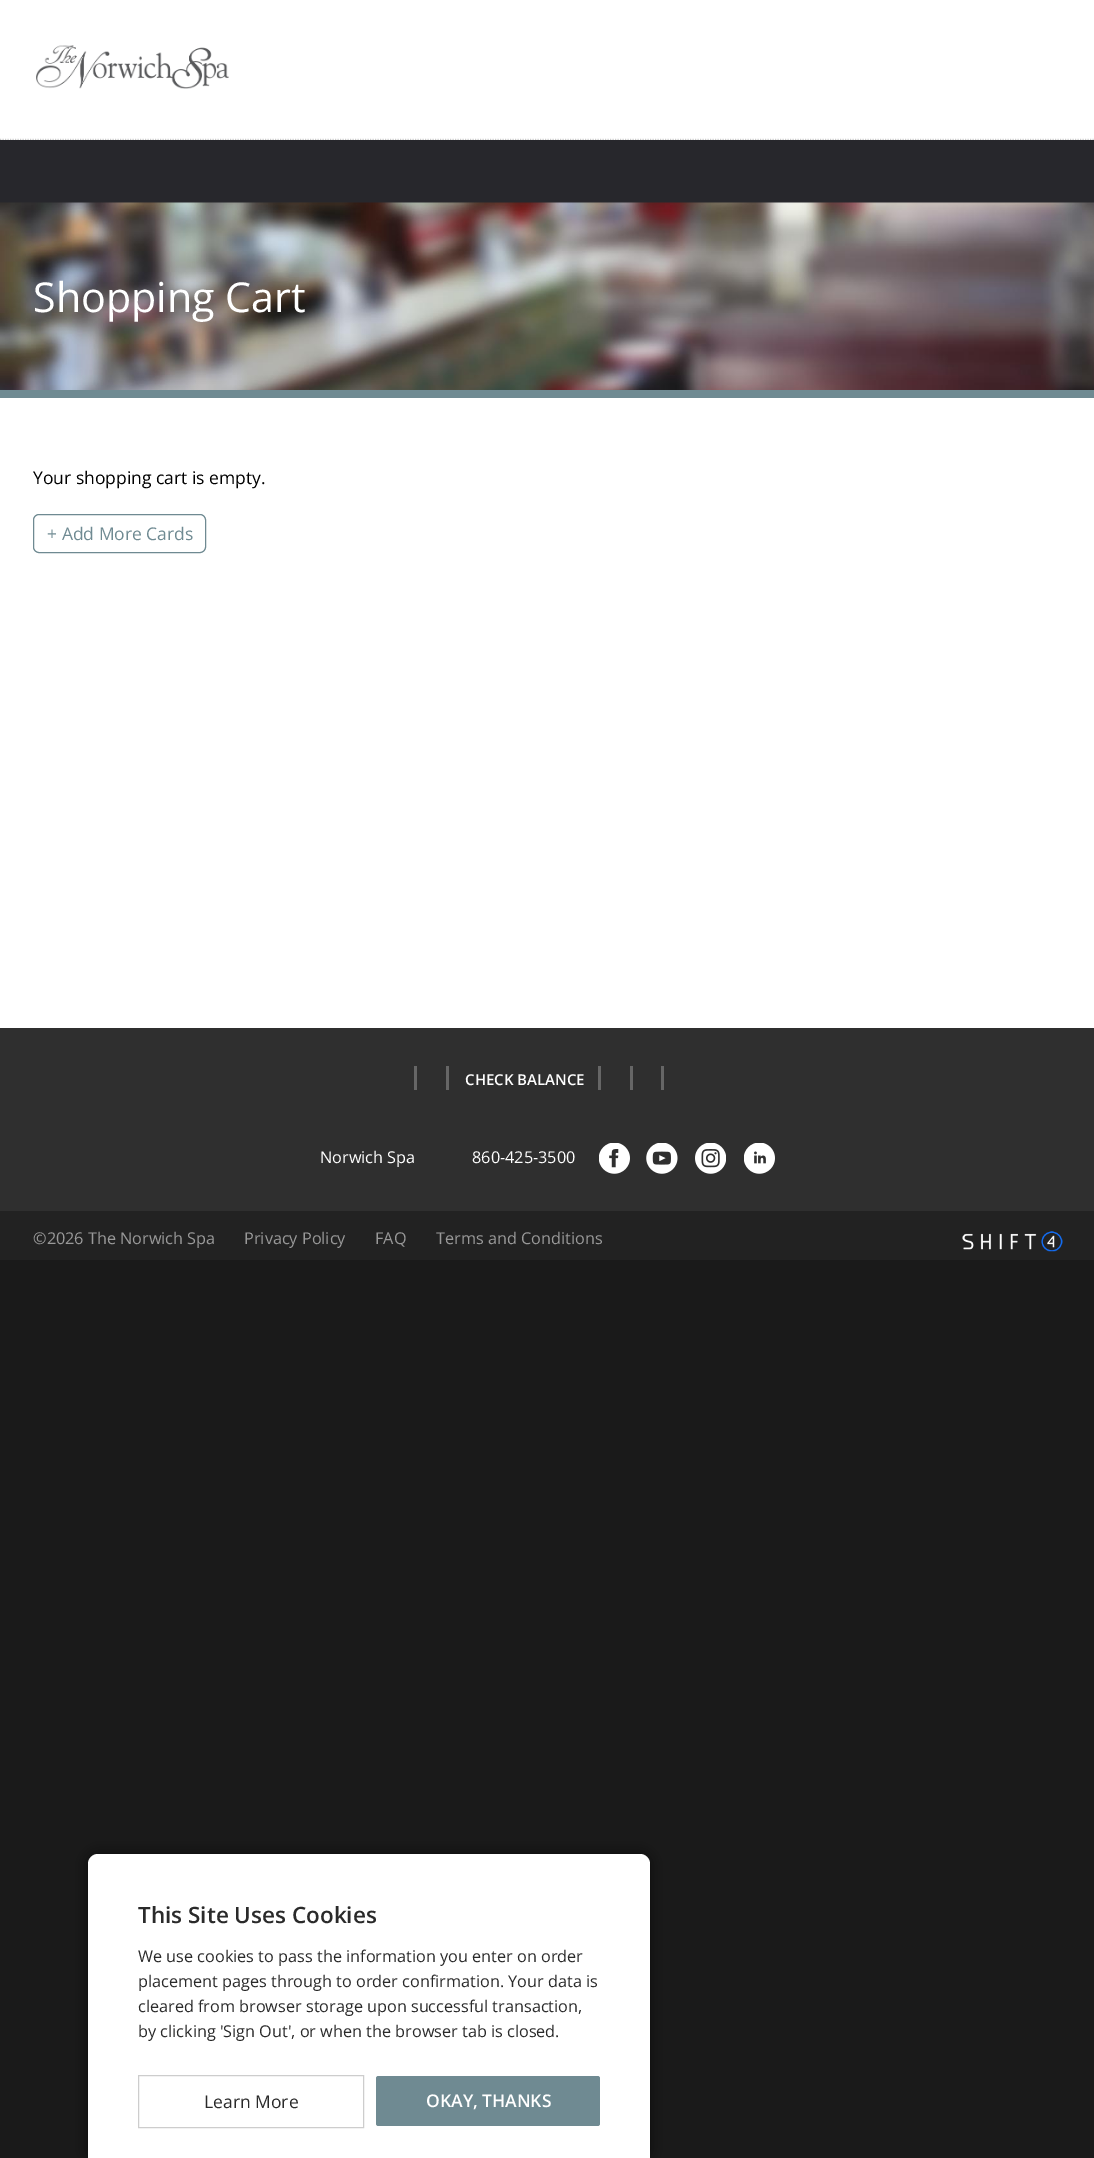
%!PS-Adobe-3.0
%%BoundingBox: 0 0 1094 2158
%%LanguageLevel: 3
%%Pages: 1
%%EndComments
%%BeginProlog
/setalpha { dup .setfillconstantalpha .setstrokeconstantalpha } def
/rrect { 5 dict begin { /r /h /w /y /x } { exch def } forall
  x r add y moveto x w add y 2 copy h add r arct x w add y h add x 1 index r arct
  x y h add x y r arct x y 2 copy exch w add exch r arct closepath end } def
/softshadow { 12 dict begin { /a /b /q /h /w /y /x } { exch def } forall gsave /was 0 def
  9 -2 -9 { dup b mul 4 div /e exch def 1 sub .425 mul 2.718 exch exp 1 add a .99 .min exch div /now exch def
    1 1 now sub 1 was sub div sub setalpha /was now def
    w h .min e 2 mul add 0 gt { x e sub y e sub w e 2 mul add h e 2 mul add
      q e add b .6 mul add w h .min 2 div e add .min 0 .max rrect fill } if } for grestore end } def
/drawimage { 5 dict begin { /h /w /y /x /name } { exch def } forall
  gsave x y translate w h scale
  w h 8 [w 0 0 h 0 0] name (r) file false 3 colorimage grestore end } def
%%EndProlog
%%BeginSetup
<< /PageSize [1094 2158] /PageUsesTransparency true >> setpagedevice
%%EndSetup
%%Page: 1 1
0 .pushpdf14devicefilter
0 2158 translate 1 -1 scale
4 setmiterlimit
0.102 setgray
0 0 1094 2158 rectfill
1 setgray
0 0 1094 1028 rectfill
(images/1.raw) 36 45 193 44 drawimage
0.8 setgray
1.2 setlinewidth
[1.25 1.25] 0 setdash
newpath 0 139.5 moveto 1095 139.5 lineto stroke
0.153 0.153 0.173 setrgbcolor
0 140 1094 63 rectfill
(images/2.raw) 0 202 1094 188 drawimage
0.435 0.541 0.573 setrgbcolor
0 390 1094 8 rectfill
1 setlinewidth
[] 0 setdash
33.5 514.5 172 38 5.5 rrect stroke
0.184 setgray
0 1028 1094 183 rectfill
0.4 setgray
414 1066 3 24 rectfill
446 1066 3 24 rectfill
598 1066 3 24 rectfill
630 1066 3 24 rectfill
661 1066 3 24 rectfill
(images/3.raw) 599 1143 31 31 drawimage
(images/4.raw) 646 1143 32 31 drawimage
(images/5.raw) 695 1143 31 31 drawimage
(images/6.raw) 744 1143 31 31 drawimage
0.133 setgray
0 1211 1094 49 rectfill
(images/7.raw) 962 1231 101 21 drawimage
0 setgray
88 1854 562 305 10 6 0.56 softshadow
1 setgray
newpath 98 1854 moveto 640 1854 lineto 645.5 1854 650 1858.5 650 1864 curveto 650 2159 lineto 88 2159 lineto 88 1864 lineto 88 1858.5 92.5 1854 98 1854 curveto closepath fill
0.804 setgray
138.5 2075.5 225 52 rectstroke
0.435 0.541 0.573 setrgbcolor
376 2076 224 50 2.5 rrect fill
/OpenSans-Regular [41.25 0 0 -41.25 0 0] selectfont
1 setgray
33 312 moveto (Shopping Cart) show
/OpenSans-Regular [17.5 0 0 -17.5 0 0] selectfont
0 setgray
33 484 moveto (Your shopping cart is empty.) show
0.435 0.541 0.573 setrgbcolor
47 540 moveto (+ Add More Cards) show
/OpenSans-SemiBold [15 0 0 -15 0 0] selectfont
1 setgray
465 1085 moveto (CHECK BALANCE) show
/OpenSans-Regular [16.25 0 0 -16.25 0 0] selectfont
320 1163 moveto (Norwich Spa) show
472 1163 moveto (860-425-3500) show
0.6 setgray
33 1244 moveto (©2026 The Norwich Spa) show
244 1244 moveto (Privacy Policy) show
375 1244 moveto (FAQ) show
436 1244 moveto (Terms and Conditions) show
/OpenSans-SemiBold [22.5 0 0 -22.5 0 0] selectfont
0.165 setgray
138 1923 moveto (This Site Uses Cookies) show
/OpenSans-Regular [16.25 0 0 -16.25 0 0] selectfont
138 1962 moveto (We use cookies to pass the information you enter on order) show
138 1987 moveto (placement pages through to order confirmation. Your data is) show
138 2012 moveto (cleared from browser storage upon successful transaction,) show
138 2037 moveto (by clicking 'Sign Out', or when the browser tab is closed.) show
/OpenSans-Regular [17.5 0 0 -17.5 0 0] selectfont
204 2108 moveto (Learn More) show
/OpenSans-SemiBold [17.5 0 0 -17.5 0 0] selectfont
1 setgray
426 2107 moveto (OKAY, THANKS) show
.poppdf14devicefilter showpage
%%EOF
